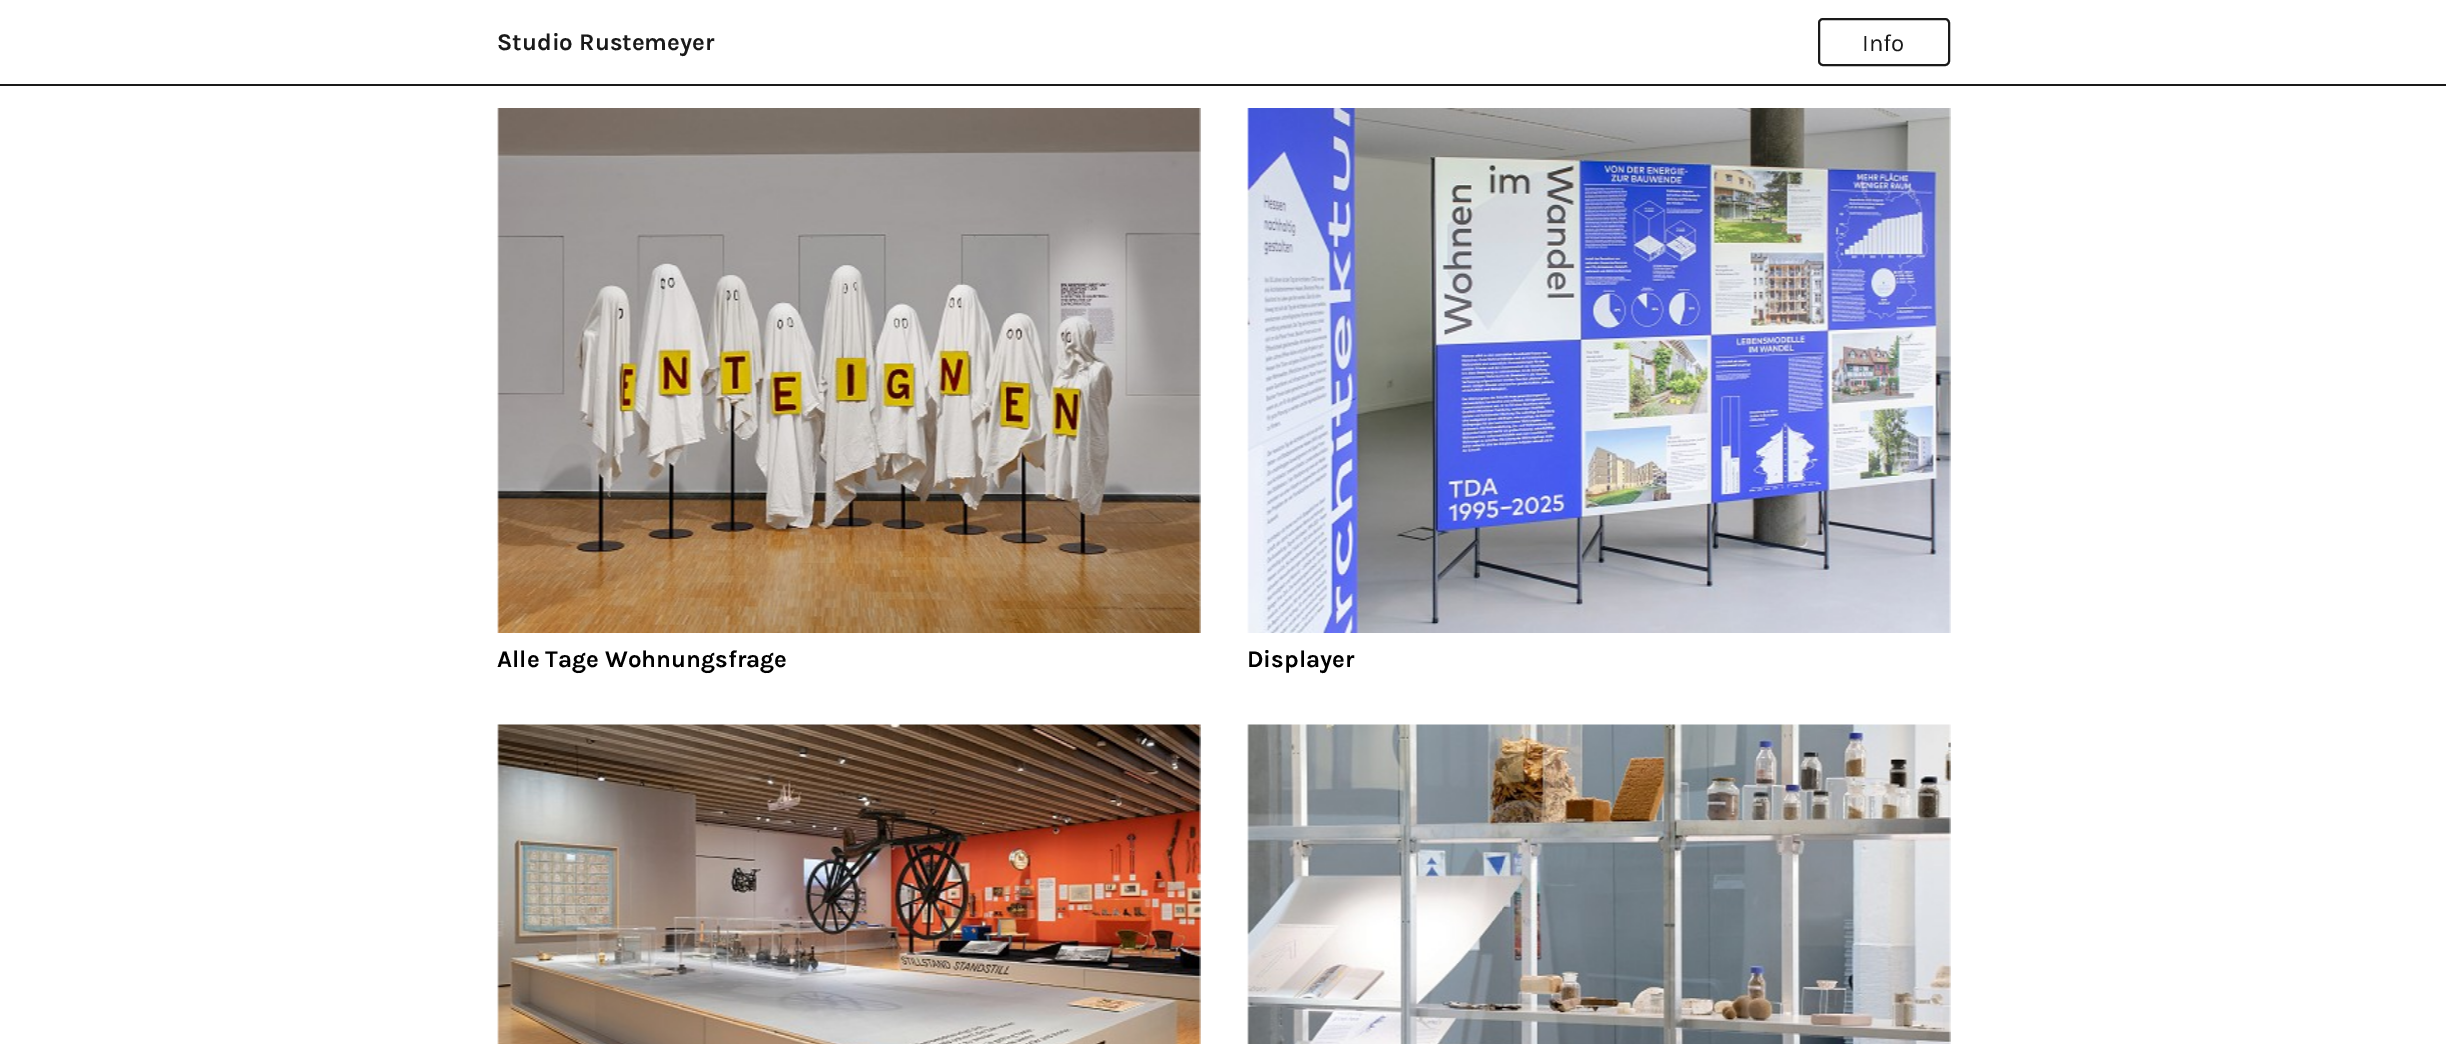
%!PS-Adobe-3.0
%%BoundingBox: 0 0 2446 1044
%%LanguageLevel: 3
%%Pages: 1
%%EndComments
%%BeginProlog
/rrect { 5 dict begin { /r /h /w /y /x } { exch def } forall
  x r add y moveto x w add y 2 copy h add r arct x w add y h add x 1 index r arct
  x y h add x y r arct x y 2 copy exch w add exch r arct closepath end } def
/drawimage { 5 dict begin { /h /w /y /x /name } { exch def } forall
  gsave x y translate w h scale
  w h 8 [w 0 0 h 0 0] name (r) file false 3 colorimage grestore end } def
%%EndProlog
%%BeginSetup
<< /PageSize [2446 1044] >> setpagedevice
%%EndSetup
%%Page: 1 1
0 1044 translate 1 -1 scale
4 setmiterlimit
1 setgray
0 0 2446 1044 rectfill
0.102 setgray
0 84 2446 2 rectfill
2 setlinewidth
1819 19 130 46 4 rrect stroke
(images/1.raw) 497 108 704 525 drawimage
(images/2.raw) 1247 108 704 525 drawimage
(images/3.raw) 497 724 704 320 drawimage
(images/4.raw) 1247 724 704 320 drawimage
/Karla-Bold [24 0 0 -24 0 0] selectfont
497 50 moveto (Studio Rustemeyer) show
/Karla-Regular [24 0 0 -24 0 0] selectfont
1862 51 moveto (Info) show
/Karla-Bold [24 0 0 -24 0 0] selectfont
0 setgray
497 667 moveto (Alle Tage Wohnungsfrage) show
1247 667 moveto (Displayer) show
showpage
%%EOF
